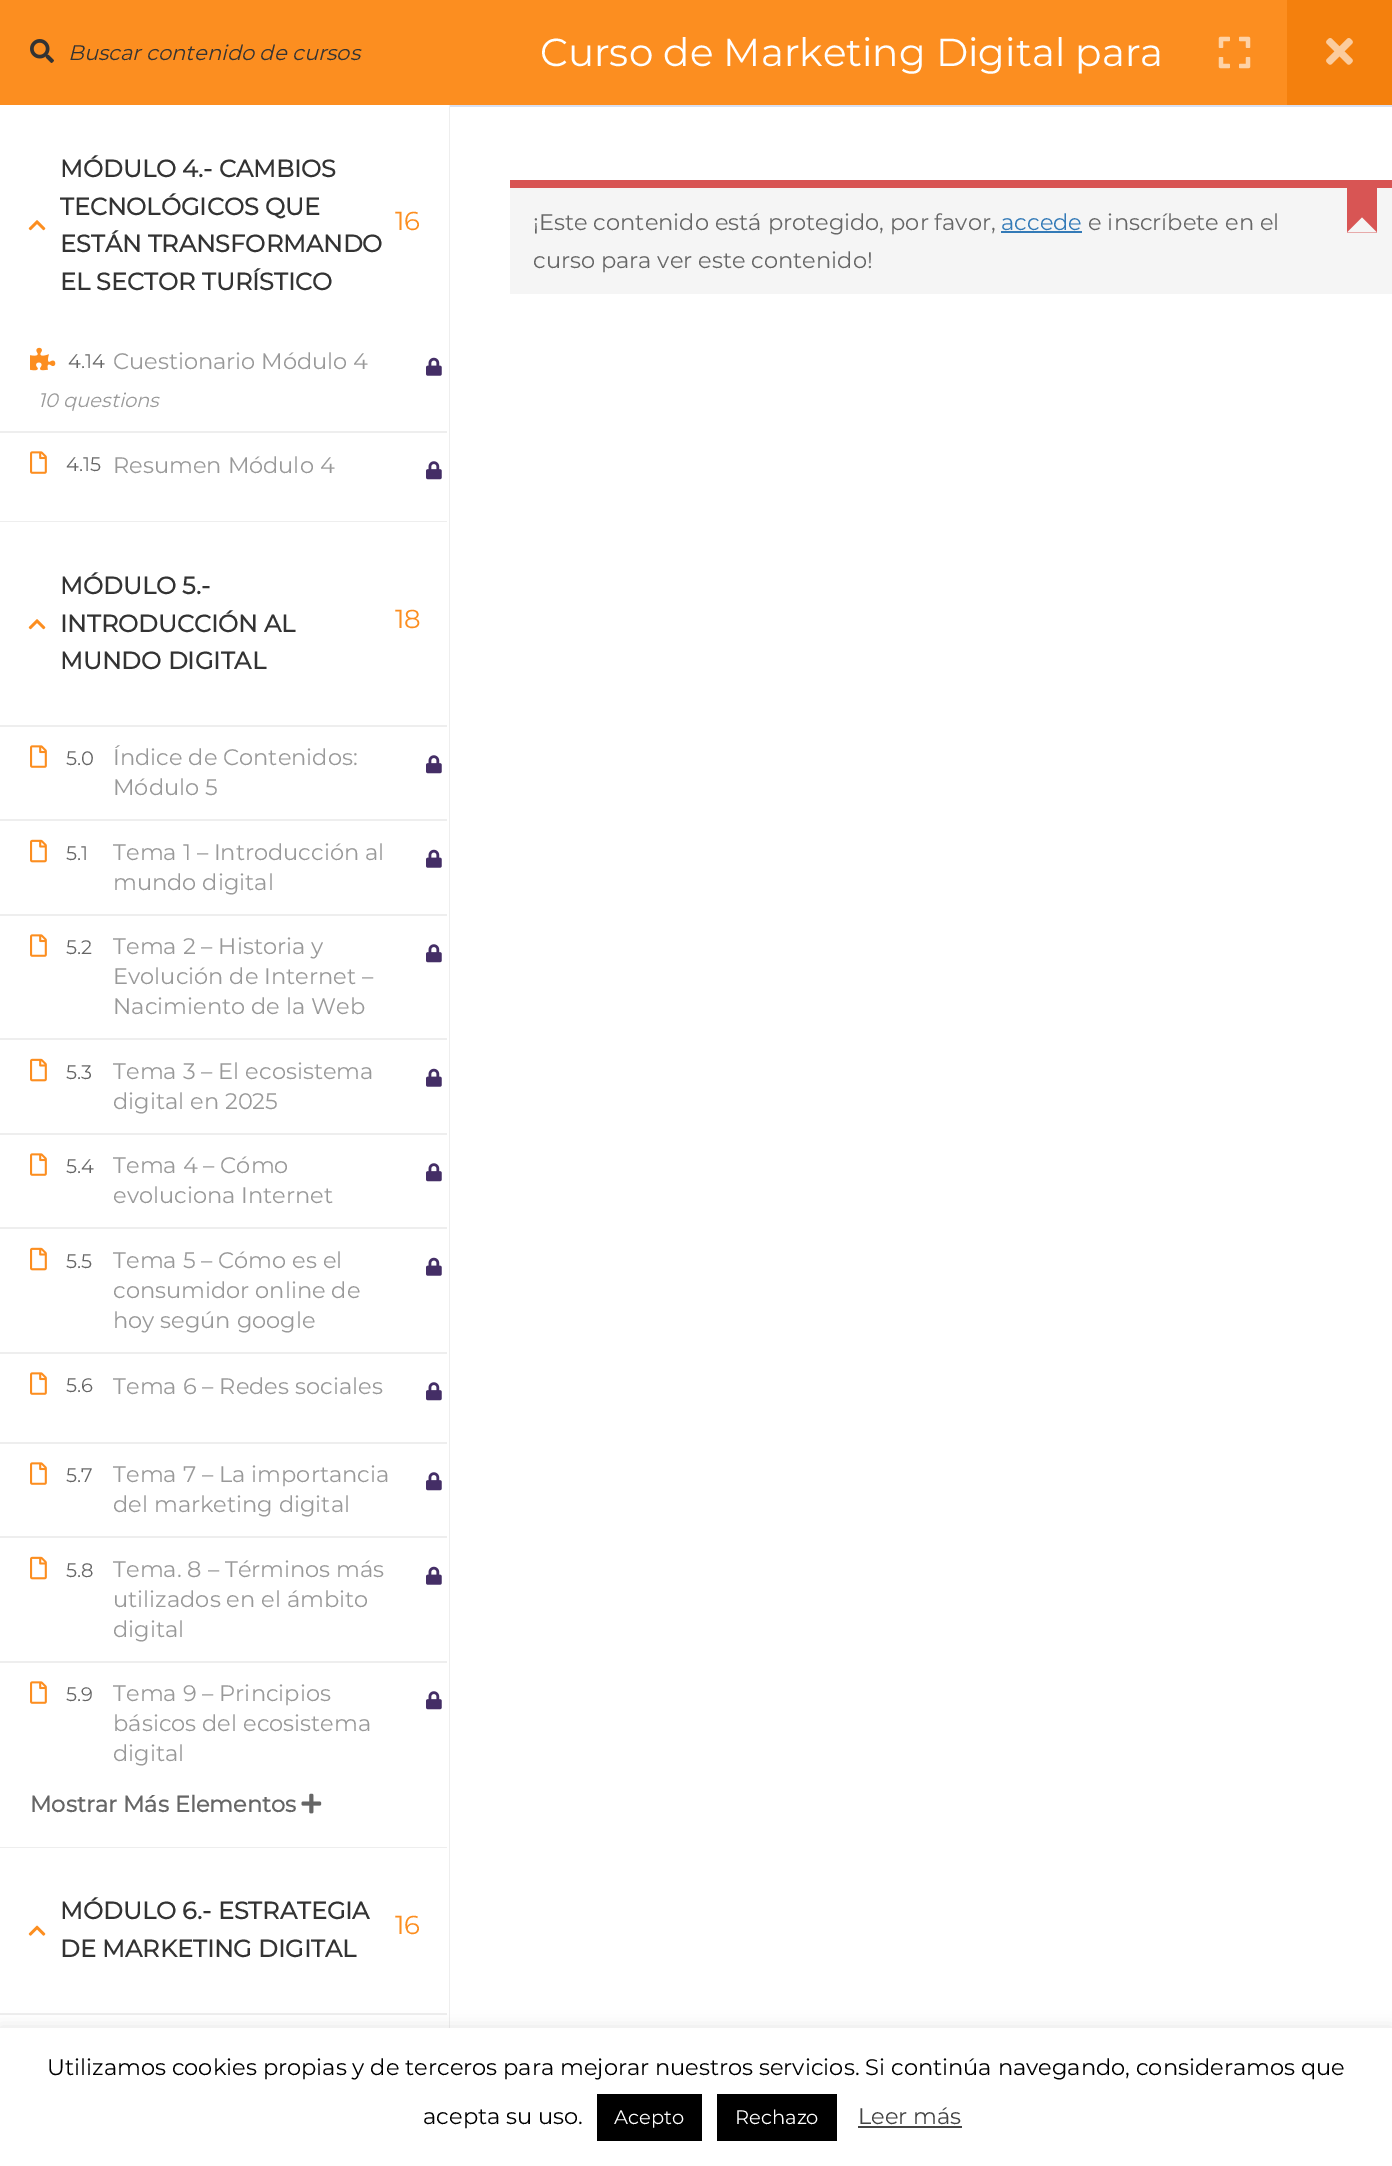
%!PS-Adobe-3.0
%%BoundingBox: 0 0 1392 2166
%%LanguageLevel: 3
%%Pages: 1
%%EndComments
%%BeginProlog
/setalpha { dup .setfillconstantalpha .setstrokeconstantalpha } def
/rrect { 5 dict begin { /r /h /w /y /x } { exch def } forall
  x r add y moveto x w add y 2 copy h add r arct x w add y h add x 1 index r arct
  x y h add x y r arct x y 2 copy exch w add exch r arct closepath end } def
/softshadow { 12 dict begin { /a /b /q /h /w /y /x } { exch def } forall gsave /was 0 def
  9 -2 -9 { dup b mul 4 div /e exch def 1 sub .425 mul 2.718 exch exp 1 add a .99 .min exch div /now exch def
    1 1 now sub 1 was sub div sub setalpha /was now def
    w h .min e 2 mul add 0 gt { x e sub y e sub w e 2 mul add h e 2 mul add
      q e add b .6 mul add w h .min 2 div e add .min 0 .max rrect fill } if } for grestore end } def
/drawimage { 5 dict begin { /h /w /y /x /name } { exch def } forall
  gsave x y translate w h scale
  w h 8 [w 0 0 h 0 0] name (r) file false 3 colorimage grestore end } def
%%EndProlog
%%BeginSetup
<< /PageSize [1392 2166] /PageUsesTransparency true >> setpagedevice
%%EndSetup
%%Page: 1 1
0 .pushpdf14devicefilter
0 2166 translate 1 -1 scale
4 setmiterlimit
1 setgray
0 0 1392 2166 rectfill
0.988 0.557 0.125 setrgbcolor
0 0 1287 105 rectfill
(images/1.raw) 30 39 24 24 drawimage
0.933 setgray
449 105 1 1923 rectfill
0 521 447 1 rectfill
(images/2.raw) 28 220 18 11 drawimage
(images/3.raw) 30 347 26 24 drawimage
(images/4.raw) 426 357 16 19 drawimage
0 431 447 2 rectfill
(images/5.raw) 30 451 17 23 drawimage
(images/6.raw) 426 461 16 19 drawimage
0 1847 447 1 rectfill
(images/2.raw) 28 619 18 11 drawimage
0 725 447 2 rectfill
(images/5.raw) 30 745 17 23 drawimage
(images/6.raw) 426 755 16 19 drawimage
0 819 447 2 rectfill
(images/7.raw) 30 839 17 24 drawimage
(images/4.raw) 426 849 16 19 drawimage
0 914 447 2 rectfill
(images/5.raw) 30 934 17 23 drawimage
(images/6.raw) 426 944 16 19 drawimage
0 1038 447 2 rectfill
(images/7.raw) 30 1058 17 24 drawimage
(images/4.raw) 426 1068 16 19 drawimage
0 1133 447 2 rectfill
(images/5.raw) 30 1153 17 23 drawimage
(images/6.raw) 426 1163 16 19 drawimage
0 1227 447 2 rectfill
(images/7.raw) 30 1247 17 24 drawimage
(images/4.raw) 426 1257 16 19 drawimage
0 1352 447 2 rectfill
(images/5.raw) 30 1372 17 23 drawimage
(images/6.raw) 426 1382 16 19 drawimage
0 1442 447 2 rectfill
(images/5.raw) 30 1462 17 23 drawimage
(images/6.raw) 426 1472 16 19 drawimage
0 1536 447 2 rectfill
(images/7.raw) 30 1556 17 24 drawimage
(images/4.raw) 426 1566 16 19 drawimage
0 1661 447 2 rectfill
(images/5.raw) 30 1681 17 23 drawimage
(images/6.raw) 426 1691 16 19 drawimage
(images/8.raw) 301 1793 21 21 drawimage
(images/9.raw) 28 1925 18 11 drawimage
0 2013 447 2 rectfill
0.851 0.878 0.945 setrgbcolor
450 105 942 2 rectfill
(images/10.raw) 1218 36 33 33 drawimage
0.957 0.502 0.051 setrgbcolor
1287 0 105 105 rectfill
(images/11.raw) 1326 38 27 27 drawimage
0.961 setgray
510 188 882 106 rectfill
0.847 0.333 0.329 setrgbcolor
510 180 882 8 rectfill
0.2 0.478 0.718 setrgbcolor
1001 231 81 2 rectfill
0.847 0.333 0.329 setrgbcolor
1347 188 30 45 rectfill
0.961 setgray
newpath 1377 232.5 moveto 1347 232.5 lineto 1362 217.5 lineto closepath fill
0.675 0.671 0.671 setrgbcolor
0 2027 1392 138 0 7.5 0.3 softshadow
1 setgray
0 2028 1392 138 rectfill
0 setgray
597 2094 105 47 rectfill
717 2094 120 47 rectfill
0.267 setgray
858 2126 104 2 rectfill
/Montserrat-Italic [21 0 0 -21 0 0] selectfont
0.2 setgray
68 60 moveto (Buscar contenido de cursos) show
/Montserrat-Bold [24 0 0 -24 0 0] selectfont
60 177 moveto (MÓDULO 4.- CAMBIOS) show
60 215 moveto (TECNOLÓGICOS QUE) show
/Montserrat-Regular [26 0 0 -26 0 0] selectfont
0.988 0.557 0.125 setrgbcolor
395 230 moveto (16) show
/Montserrat-Bold [24 0 0 -24 0 0] selectfont
0.2 setgray
60 252 moveto (ESTÁN TRANSFORMANDO) show
60 290 moveto (EL SECTOR TURÍSTICO) show
/Montserrat-Regular [19.5 0 0 -19.5 0 0] selectfont
0.4 setgray
68 368 moveto (4.14) show
/Montserrat-Regular [22.5 0 0 -22.5 0 0] selectfont
0.6 setgray
113 369 moveto (Cuestionario Módulo 4) show
/Montserrat-Italic [19.5 0 0 -19.5 0 0] selectfont
38 407 moveto (10 questions) show
/Montserrat-Regular [19.5 0 0 -19.5 0 0] selectfont
0.4 setgray
66 471 moveto (4.15) show
/Montserrat-Regular [22.5 0 0 -22.5 0 0] selectfont
0.6 setgray
113 473 moveto (Resumen Módulo 4) show
/Montserrat-Bold [24 0 0 -24 0 0] selectfont
0.2 setgray
60 594 moveto (MÓDULO 5.-) show
60 632 moveto (INTRODUCCIÓN AL) show
/Montserrat-Regular [26 0 0 -26 0 0] selectfont
0.988 0.557 0.125 setrgbcolor
395 628 moveto (18) show
/Montserrat-Bold [24 0 0 -24 0 0] selectfont
0.2 setgray
60 669 moveto (MUNDO DIGITAL) show
/Montserrat-Regular [19.5 0 0 -19.5 0 0] selectfont
0.4 setgray
66 765 moveto (5.0) show
/Montserrat-Regular [22.5 0 0 -22.5 0 0] selectfont
0.6 setgray
113 765 moveto (Índice de Contenidos:) show
113 795 moveto (Módulo 5) show
/Montserrat-Regular [19.5 0 0 -19.5 0 0] selectfont
0.4 setgray
66 860 moveto (5.1) show
/Montserrat-Regular [22.5 0 0 -22.5 0 0] selectfont
0.6 setgray
113 860 moveto (Tema 1 – Introducción al) show
113 890 moveto (mundo digital) show
/Montserrat-Regular [19.5 0 0 -19.5 0 0] selectfont
0.4 setgray
66 954 moveto (5.2) show
/Montserrat-Regular [22.5 0 0 -22.5 0 0] selectfont
0.6 setgray
113 954 moveto (Tema 2 – Historia y) show
113 984 moveto (Evolución de Internet –) show
113 1014 moveto (Nacimiento de la Web) show
/Montserrat-Regular [19.5 0 0 -19.5 0 0] selectfont
0.4 setgray
66 1079 moveto (5.3) show
/Montserrat-Regular [22.5 0 0 -22.5 0 0] selectfont
0.6 setgray
113 1079 moveto (Tema 3 – El ecosistema) show
113 1109 moveto (digital en 2025) show
/Montserrat-Regular [19.5 0 0 -19.5 0 0] selectfont
0.4 setgray
66 1173 moveto (5.4) show
/Montserrat-Regular [22.5 0 0 -22.5 0 0] selectfont
0.6 setgray
113 1173 moveto (Tema 4 – Cómo) show
113 1203 moveto (evoluciona Internet) show
/Montserrat-Regular [19.5 0 0 -19.5 0 0] selectfont
0.4 setgray
66 1268 moveto (5.5) show
/Montserrat-Regular [22.5 0 0 -22.5 0 0] selectfont
0.6 setgray
113 1268 moveto (Tema 5 – Cómo es el) show
113 1298 moveto (consumidor online de) show
113 1328 moveto (hoy según google) show
/Montserrat-Regular [19.5 0 0 -19.5 0 0] selectfont
0.4 setgray
66 1392 moveto (5.6) show
/Montserrat-Regular [22.5 0 0 -22.5 0 0] selectfont
0.6 setgray
113 1394 moveto (Tema 6 – Redes sociales) show
/Montserrat-Regular [19.5 0 0 -19.5 0 0] selectfont
0.4 setgray
66 1482 moveto (5.7) show
/Montserrat-Regular [22.5 0 0 -22.5 0 0] selectfont
0.6 setgray
113 1482 moveto (Tema 7 – La importancia) show
113 1512 moveto (del marketing digital) show
/Montserrat-Regular [19.5 0 0 -19.5 0 0] selectfont
0.4 setgray
66 1577 moveto (5.8) show
/Montserrat-Regular [22.5 0 0 -22.5 0 0] selectfont
0.6 setgray
113 1577 moveto (Tema. 8 – Términos más) show
113 1607 moveto (utilizados en el ámbito) show
113 1637 moveto (digital) show
/Montserrat-Regular [19.5 0 0 -19.5 0 0] selectfont
0.4 setgray
66 1701 moveto (5.9) show
/Montserrat-Regular [22.5 0 0 -22.5 0 0] selectfont
0.6 setgray
113 1701 moveto (Tema 9 – Principios) show
113 1731 moveto (básicos del ecosistema) show
113 1761 moveto (digital) show
/Montserrat-Bold [22.5 0 0 -22.5 0 0] selectfont
0.4 setgray
30 1812 moveto (Mostrar Más Elementos) show
/Montserrat-Bold [24 0 0 -24 0 0] selectfont
0.2 setgray
60 1919 moveto (MÓDULO 6.- ESTRATEGIA) show
/Montserrat-Regular [26 0 0 -26 0 0] selectfont
0.988 0.557 0.125 setrgbcolor
395 1934 moveto (16) show
/Montserrat-Bold [24 0 0 -24 0 0] selectfont
0.2 setgray
60 1957 moveto (DE MARKETING DIGITAL) show
/Montserrat-Regular [39 0 0 -39 0 0] selectfont
1 setgray
540 66 moveto (Curso de Marketing Digital para) show
/Montserrat-Regular [22.5 0 0 -22.5 0 0] selectfont
0.4 setgray
533 230 moveto (¡Este contenido está protegido, por favor,) show
0.2 0.478 0.718 setrgbcolor
1001 230 moveto (accede) show
0.4 setgray
1088 230 moveto (e inscríbete en el) show
533 268 moveto (curso para ver este contenido!) show
0 setgray
47 2075 moveto (Utilizamos cookies propias y de terceros para mejorar nuestros servicios. Si continúa navegando, consideramos que) show
423 2124 moveto (acepta su uso.) show
/Montserrat-Regular [19.5 0 0 -19.5 0 0] selectfont
1 setgray
614 2124 moveto (Acepto) show
735 2124 moveto (Rechazo) show
/Montserrat-Regular [22.5 0 0 -22.5 0 0] selectfont
0.267 setgray
858 2124 moveto (Leer más) show
.poppdf14devicefilter showpage
%%EOF
